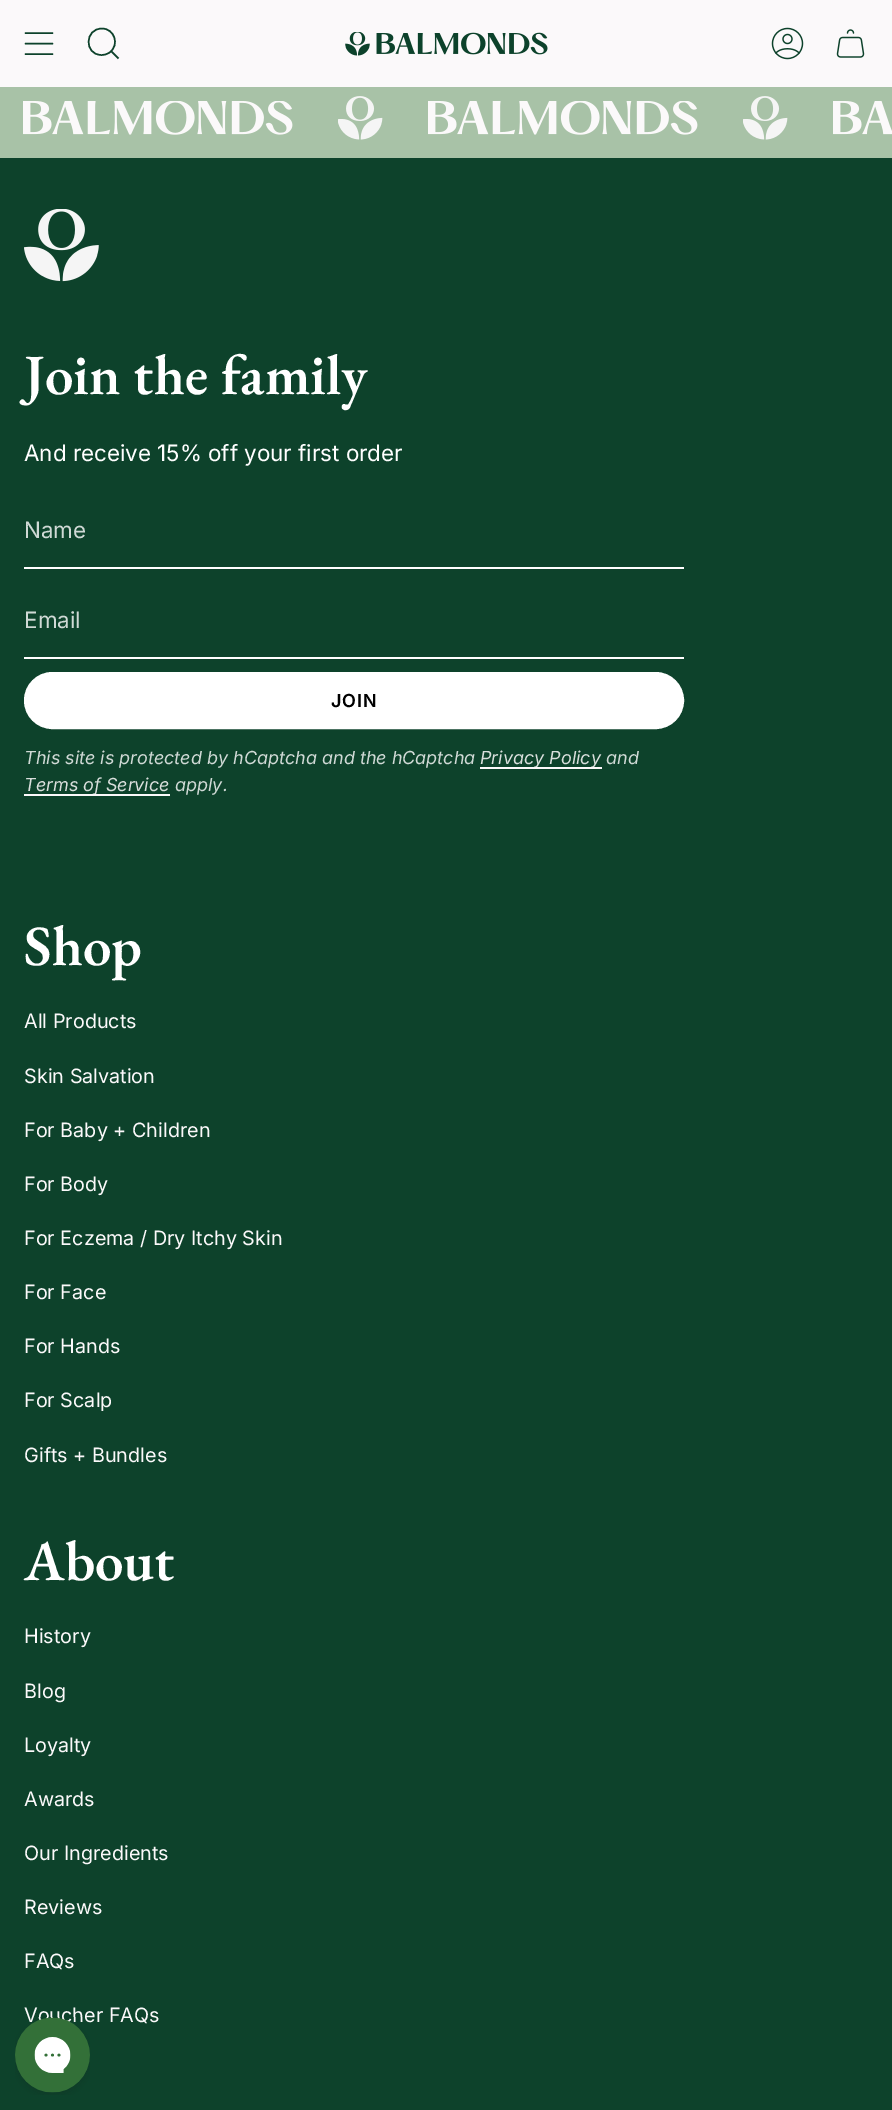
%!PS-Adobe-3.0
%%BoundingBox: 0 0 892 2110
%%LanguageLevel: 3
%%Pages: 1
%%EndComments
%%BeginProlog
/rrect { 5 dict begin { /r /h /w /y /x } { exch def } forall
  x r add y moveto x w add y 2 copy h add r arct x w add y h add x 1 index r arct
  x y h add x y r arct x y 2 copy exch w add exch r arct closepath end } def
/drawimage { 5 dict begin { /h /w /y /x /name } { exch def } forall
  gsave x y translate w h scale
  w h 8 [w 0 0 h 0 0] name (r) file false 3 colorimage grestore end } def
%%EndProlog
%%BeginSetup
<< /PageSize [892 2110] >> setpagedevice
%%EndSetup
%%Page: 1 1
0 2110 translate 1 -1 scale
4 setmiterlimit
0.051 0.259 0.169 setrgbcolor
0 0 892 2110 rectfill
0.984 0.976 0.98 setrgbcolor
0 0 892 87 rectfill
0.051 0.259 0.169 setrgbcolor
1.5 setlinewidth
1 setlinecap
1 setlinejoin
newpath 25.5 33 moveto 52.5 33 lineto 25.5 43.5 moveto 52.5 43.5 lineto 25.5 54 moveto 52.5 54 lineto stroke
0 setlinecap
0 setlinejoin
newpath 102 28.5 moveto 114.5 28.5 120 45 109.5 52.5 curveto 107 54.5 104 55 101 55 curveto 84 54.5 84.5 28.5 102 28.5 curveto closepath 111 51 moveto 118.5 58.5 lineto stroke
(images/1.raw) 345 32 203 24 drawimage
(images/2.raw) 771 27 33 33 drawimage
(images/3.raw) 836 29 29 29 drawimage
0.659 0.761 0.655 setrgbcolor
0 87 892 71 rectfill
(images/4.raw) 23 101 270 34 drawimage
(images/5.raw) 338 96 45 44 drawimage
(images/4.raw) 428 101 270 34 drawimage
(images/5.raw) 743 96 45 44 drawimage
(images/6.raw) 833 101 59 34 drawimage
(images/7.raw) 24 209 75 73 drawimage
1 setgray
24 567 660 2 rectfill
24 657 660 2 rectfill
25 673 658 55 27.5 rrect gsave fill grestore
2 setlinewidth
stroke
/EBGaramond-SemiBold [57 0 0 -57 0 0] selectfont
24 394 moveto (Join the family) show
/Inter-Regular [22.5 0 0 -22.5 0 0] selectfont
24 461 moveto (And receive 15% off your first order) show
0.812 0.851 0.835 setrgbcolor
24 538 moveto (Name) show
24 628 moveto (Email) show
/Inter-SemiBold [18 0 0 -18 0 0] selectfont
0 setgray
331 707 moveto 1 0 (JOIN) ashow
/Inter-Italic [18 0 0 -18 0 0] selectfont
0.812 0.851 0.835 setrgbcolor
24 764 moveto (This site is protected by hCaptcha and the hCaptcha) show
0.847 0.871 0.859 setrgbcolor
480 764 moveto (Privacy Policy) show
0.984 0.976 0.98 setrgbcolor
480 767 122 2 rectfill
0.812 0.851 0.835 setrgbcolor
606 764 moveto (and) show
0.847 0.871 0.859 setrgbcolor
24 791 moveto (Terms of Service) show
0.984 0.976 0.98 setrgbcolor
24 794 146 2 rectfill
0.812 0.851 0.835 setrgbcolor
175 791 moveto (apply.) show
/EBGaramond-SemiBold [57 0 0 -57 0 0] selectfont
1 setgray
24 965 moveto (Shop) show
/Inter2-Regular [19.75 0 0 -19.75 0 0] selectfont
0.984 0.976 0.98 setrgbcolor
24 1028 moveto (All Products) show
24 1083 moveto (Skin Salvation) show
24 1137 moveto (For Baby + Children) show
24 1191 moveto (For Body) show
24 1245 moveto (For Eczema / Dry Itchy Skin) show
24 1299 moveto (For Face) show
24 1353 moveto (For Hands) show
24 1407 moveto (For Scalp) show
24 1462 moveto (Gifts + Bundles) show
/EBGaramond-SemiBold [57 0 0 -57 0 0] selectfont
1 setgray
24 1580 moveto (About) show
/Inter2-Regular [19.75 0 0 -19.75 0 0] selectfont
0.984 0.976 0.98 setrgbcolor
24 1643 moveto (History) show
24 1698 moveto (Blog) show
24 1752 moveto (Loyalty) show
24 1806 moveto (Awards) show
24 1860 moveto (Our Ingredients) show
24 1914 moveto (Reviews) show
24 1968 moveto (FAQs) show
24 2022 moveto (Voucher FAQs) show
(images/8.raw) 15 2017 75 78 drawimage
showpage
%%EOF
